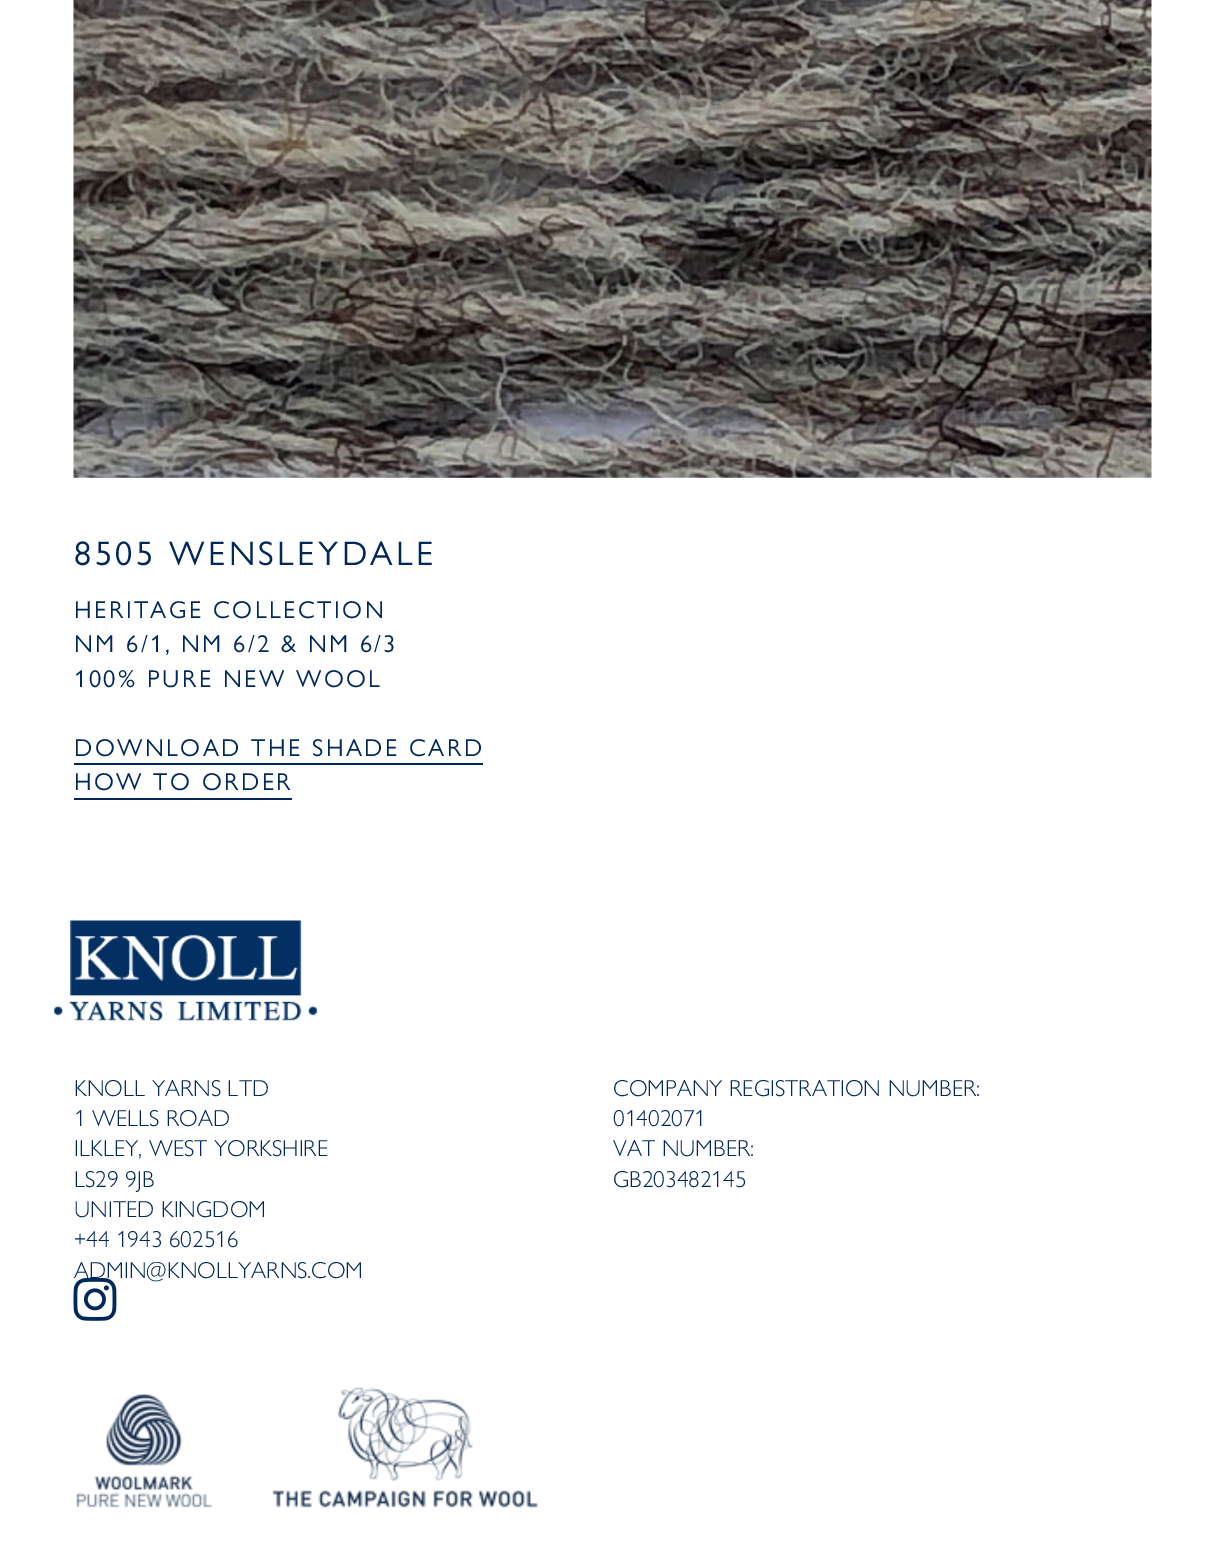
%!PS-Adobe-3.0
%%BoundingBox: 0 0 1224 1568
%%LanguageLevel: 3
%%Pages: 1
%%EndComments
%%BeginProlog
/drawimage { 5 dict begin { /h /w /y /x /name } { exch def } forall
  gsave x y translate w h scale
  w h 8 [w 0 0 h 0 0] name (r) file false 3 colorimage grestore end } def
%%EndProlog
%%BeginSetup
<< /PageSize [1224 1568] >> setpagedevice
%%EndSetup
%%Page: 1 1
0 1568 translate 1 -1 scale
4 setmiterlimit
1 setgray
0 0 1224 1568 rectfill
(images/1.raw) 73 0 1079 478 drawimage
0 0.157 0.361 setrgbcolor
74 763 409 2 rectfill
74 798 218 2 rectfill
(images/2.raw) 54 920 263 101 drawimage
(images/4.raw) 76 1387 462 121 drawimage
/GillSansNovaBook-Regular [34.25 0 0 -34.25 0 0] selectfont
74 565 moveto 3.4 0 (8505 WENSLEYDALE) ashow
/GillSansNovaBook-Regular [24.5 0 0 -24.5 0 0] selectfont
74 618 moveto 2.45 0 (HERITAGE COLLECTION) ashow
74 652 moveto 2.45 0 (NM 6/1, NM 6/2 & NM 6/3) ashow
74 687 moveto 2.45 0 (100% PURE NEW WOOL) ashow
74 756 moveto 2.45 0 (DOWNLOAD THE SHADE CARD) ashow
74 790 moveto 2.45 0 (HOW TO ORDER) ashow
/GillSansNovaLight-Light [23.25 0 0 -23.25 0 0] selectfont
74 1096 moveto (KNOLL YARNS LTD) show
74 1126 moveto (1 WELLS ROAD) show
74 1156 moveto (ILKLEY, WEST YORKSHIRE) show
74 1187 moveto (LS29 9JB) show
74 1217 moveto (UNITED KINGDOM) show
74 1247 moveto (+44 1943 602516) show
74 1278 moveto (ADMIN@KNOLLYARNS.COM) show
(images/3.raw) 73 1277 44 44 drawimage
613 1096 moveto (COMPANY REGISTRATION NUMBER:) show
613 1126 moveto (01402071) show
613 1156 moveto (VAT NUMBER:) show
613 1187 moveto (GB203482145) show
showpage
%%EOF
